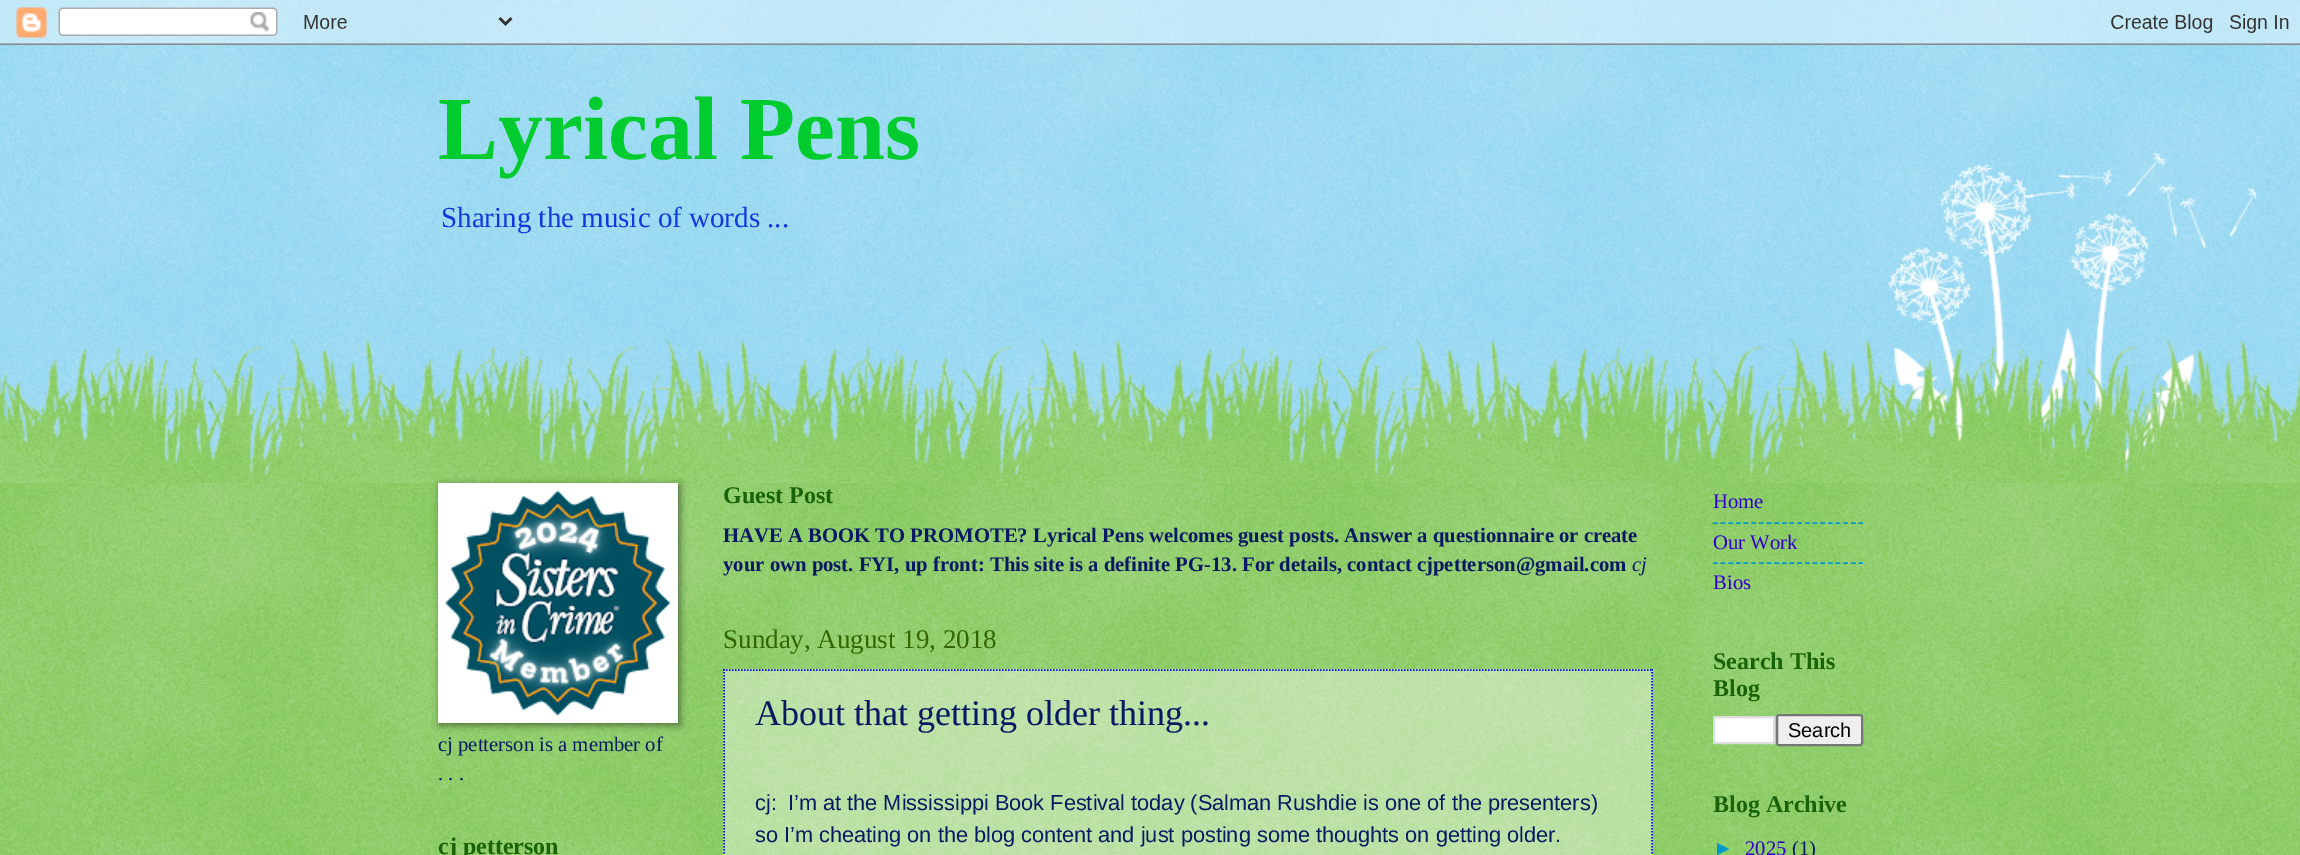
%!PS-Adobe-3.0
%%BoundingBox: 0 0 2300 855
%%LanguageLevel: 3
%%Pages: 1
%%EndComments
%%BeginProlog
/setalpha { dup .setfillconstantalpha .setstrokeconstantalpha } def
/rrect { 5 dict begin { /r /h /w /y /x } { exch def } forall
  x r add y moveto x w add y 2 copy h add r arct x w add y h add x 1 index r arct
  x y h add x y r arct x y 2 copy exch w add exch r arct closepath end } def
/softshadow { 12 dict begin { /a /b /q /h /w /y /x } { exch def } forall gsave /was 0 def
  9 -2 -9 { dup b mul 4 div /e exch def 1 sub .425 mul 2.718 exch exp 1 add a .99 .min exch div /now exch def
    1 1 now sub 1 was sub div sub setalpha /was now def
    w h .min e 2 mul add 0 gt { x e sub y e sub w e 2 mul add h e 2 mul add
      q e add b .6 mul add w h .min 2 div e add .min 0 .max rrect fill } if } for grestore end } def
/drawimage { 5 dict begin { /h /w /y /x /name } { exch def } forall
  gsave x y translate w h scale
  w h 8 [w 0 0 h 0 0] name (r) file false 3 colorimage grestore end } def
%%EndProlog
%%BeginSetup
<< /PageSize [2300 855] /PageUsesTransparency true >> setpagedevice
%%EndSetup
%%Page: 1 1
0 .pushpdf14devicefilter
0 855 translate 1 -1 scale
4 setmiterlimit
0.467 0.8 0.933 setrgbcolor
0 0 2300 855 rectfill
(images/1.raw) 0 0 2300 476 drawimage
(images/2.raw) 0 0 2300 45 drawimage
0.4 0.733 0.2 setrgbcolor
0 483 2300 372 rectfill
(images/3.raw) 0 483 2300 372 drawimage
(images/4.raw) 1881 153 375 323 drawimage
(images/5.raw) 0 338 2300 145 drawimage
0 setgray
440 485 240 240 0 4 0.5 softshadow
1 setgray
438 483 240 240 rectfill
(images/6.raw) 445 490 226 226 drawimage
0.4 setalpha
723 669 930 186 rectfill
1 setalpha
0 0 1 setrgbcolor
1.5 setlinewidth
[1.5 1.5] 0 setdash
newpath 723 670 moveto 1653 670 lineto stroke
newpath 1652 669 moveto 1652 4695 lineto stroke
newpath 724 669 moveto 724 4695 lineto stroke
0 0.6 0.8 setrgbcolor
[4.5 3.17] 0 setdash
newpath 1713 523 moveto 1863 523 lineto stroke
newpath 1713 563 moveto 1863 563 lineto stroke
1 setgray
newpath 1714 717 moveto 1774 717 lineto 1774 743 lineto 1714 743 lineto closepath gsave fill grestore
0.867 setgray
2 setlinewidth
[] 0 setdash
stroke
0.937 setgray
1777 715 85 30 2 rrect gsave fill grestore
0.463 setgray
stroke
/LiberationSerif-Bold [90 0 0 -90 0 0] selectfont
0 0.8 0.184 setrgbcolor
438 159 moveto (Lyrical Pens) show
/LiberationSerif-Regular [29 0 0 -29 0 0] selectfont
0.055 0.216 0.871 setrgbcolor
441 227 moveto (Sharing the music of words ...) show
/LiberationSerif-Regular [20.7 0 0 -20.7 0 0] selectfont
0.027 0.098 0.388 setrgbcolor
438 751 moveto (cj petterson is a member of) show
438 780 moveto (. . .) show
/LiberationSerif-Bold [24 0 0 -24 0 0] selectfont
0.098 0.388 0.027 setrgbcolor
438 854 moveto (cj petterson) show
723 503 moveto (Guest Post) show
/LiberationSerif-Bold [20.7 0 0 -20.7 0 0] selectfont
0.027 0.098 0.388 setrgbcolor
723 542 moveto (HAVE A BOOK TO PROMOTE? Lyrical Pens welcomes guest posts. Answer a questionnaire or create) show
723 571 moveto (your own post. FYI, up front: This site is a definite PG-13. For details, contact cjpetterson@gmail.com) show
/LiberationSerif-Italic [20.7 0 0 -20.7 0 0] selectfont
1632 571 moveto (cj) show
/LiberationSerif-Regular [27 0 0 -27 0 0] selectfont
0.2 0.4 0 setrgbcolor
723 648 moveto (Sunday, August 19, 2018) show
/LiberationSerif-Regular [36 0 0 -36 0 0] selectfont
0.027 0.098 0.388 setrgbcolor
755 725 moveto (About that getting older thing...) show
/LiberationSans-Regular [21.75 0 0 -21.75 0 0] selectfont
755 810 moveto (cj:) show
788 810 moveto (I’m at the Mississippi Book Festival today \(Salman Rushdie is one of the presenters\)) show
755 842 moveto (so I’m cheating on the blog content and just posting some thoughts on getting older.) show
/LiberationSerif-Regular [20.7 0 0 -20.7 0 0] selectfont
0.2 0 0.8 setrgbcolor
1713 508 moveto (Home) show
1713 549 moveto (Our Work) show
1713 589 moveto (Bios) show
/LiberationSerif-Bold [24 0 0 -24 0 0] selectfont
0.098 0.388 0.027 setrgbcolor
1713 669 moveto (Search This) show
1713 696 moveto (Blog) show
/LiberationSans-Regular [20 0 0 -20 0 0] selectfont
0 setgray
1788 737 moveto (Search) show
/LiberationSerif-Bold [24 0 0 -24 0 0] selectfont
0.098 0.388 0.027 setrgbcolor
1713 812 moveto (Blog Archive) show
/LiberationSans-Regular [20.7 0 0 -20.7 0 0] selectfont
0 0.6 0.8 setrgbcolor
1713 855 moveto (►) show
/LiberationSerif-Regular [20.7 0 0 -20.7 0 0] selectfont
0.2 0 0.8 setrgbcolor
1745 855 moveto (2025) show
0.027 0.098 0.388 setrgbcolor
1792 855 moveto (\(1\)) show
.poppdf14devicefilter showpage
%%EOF
